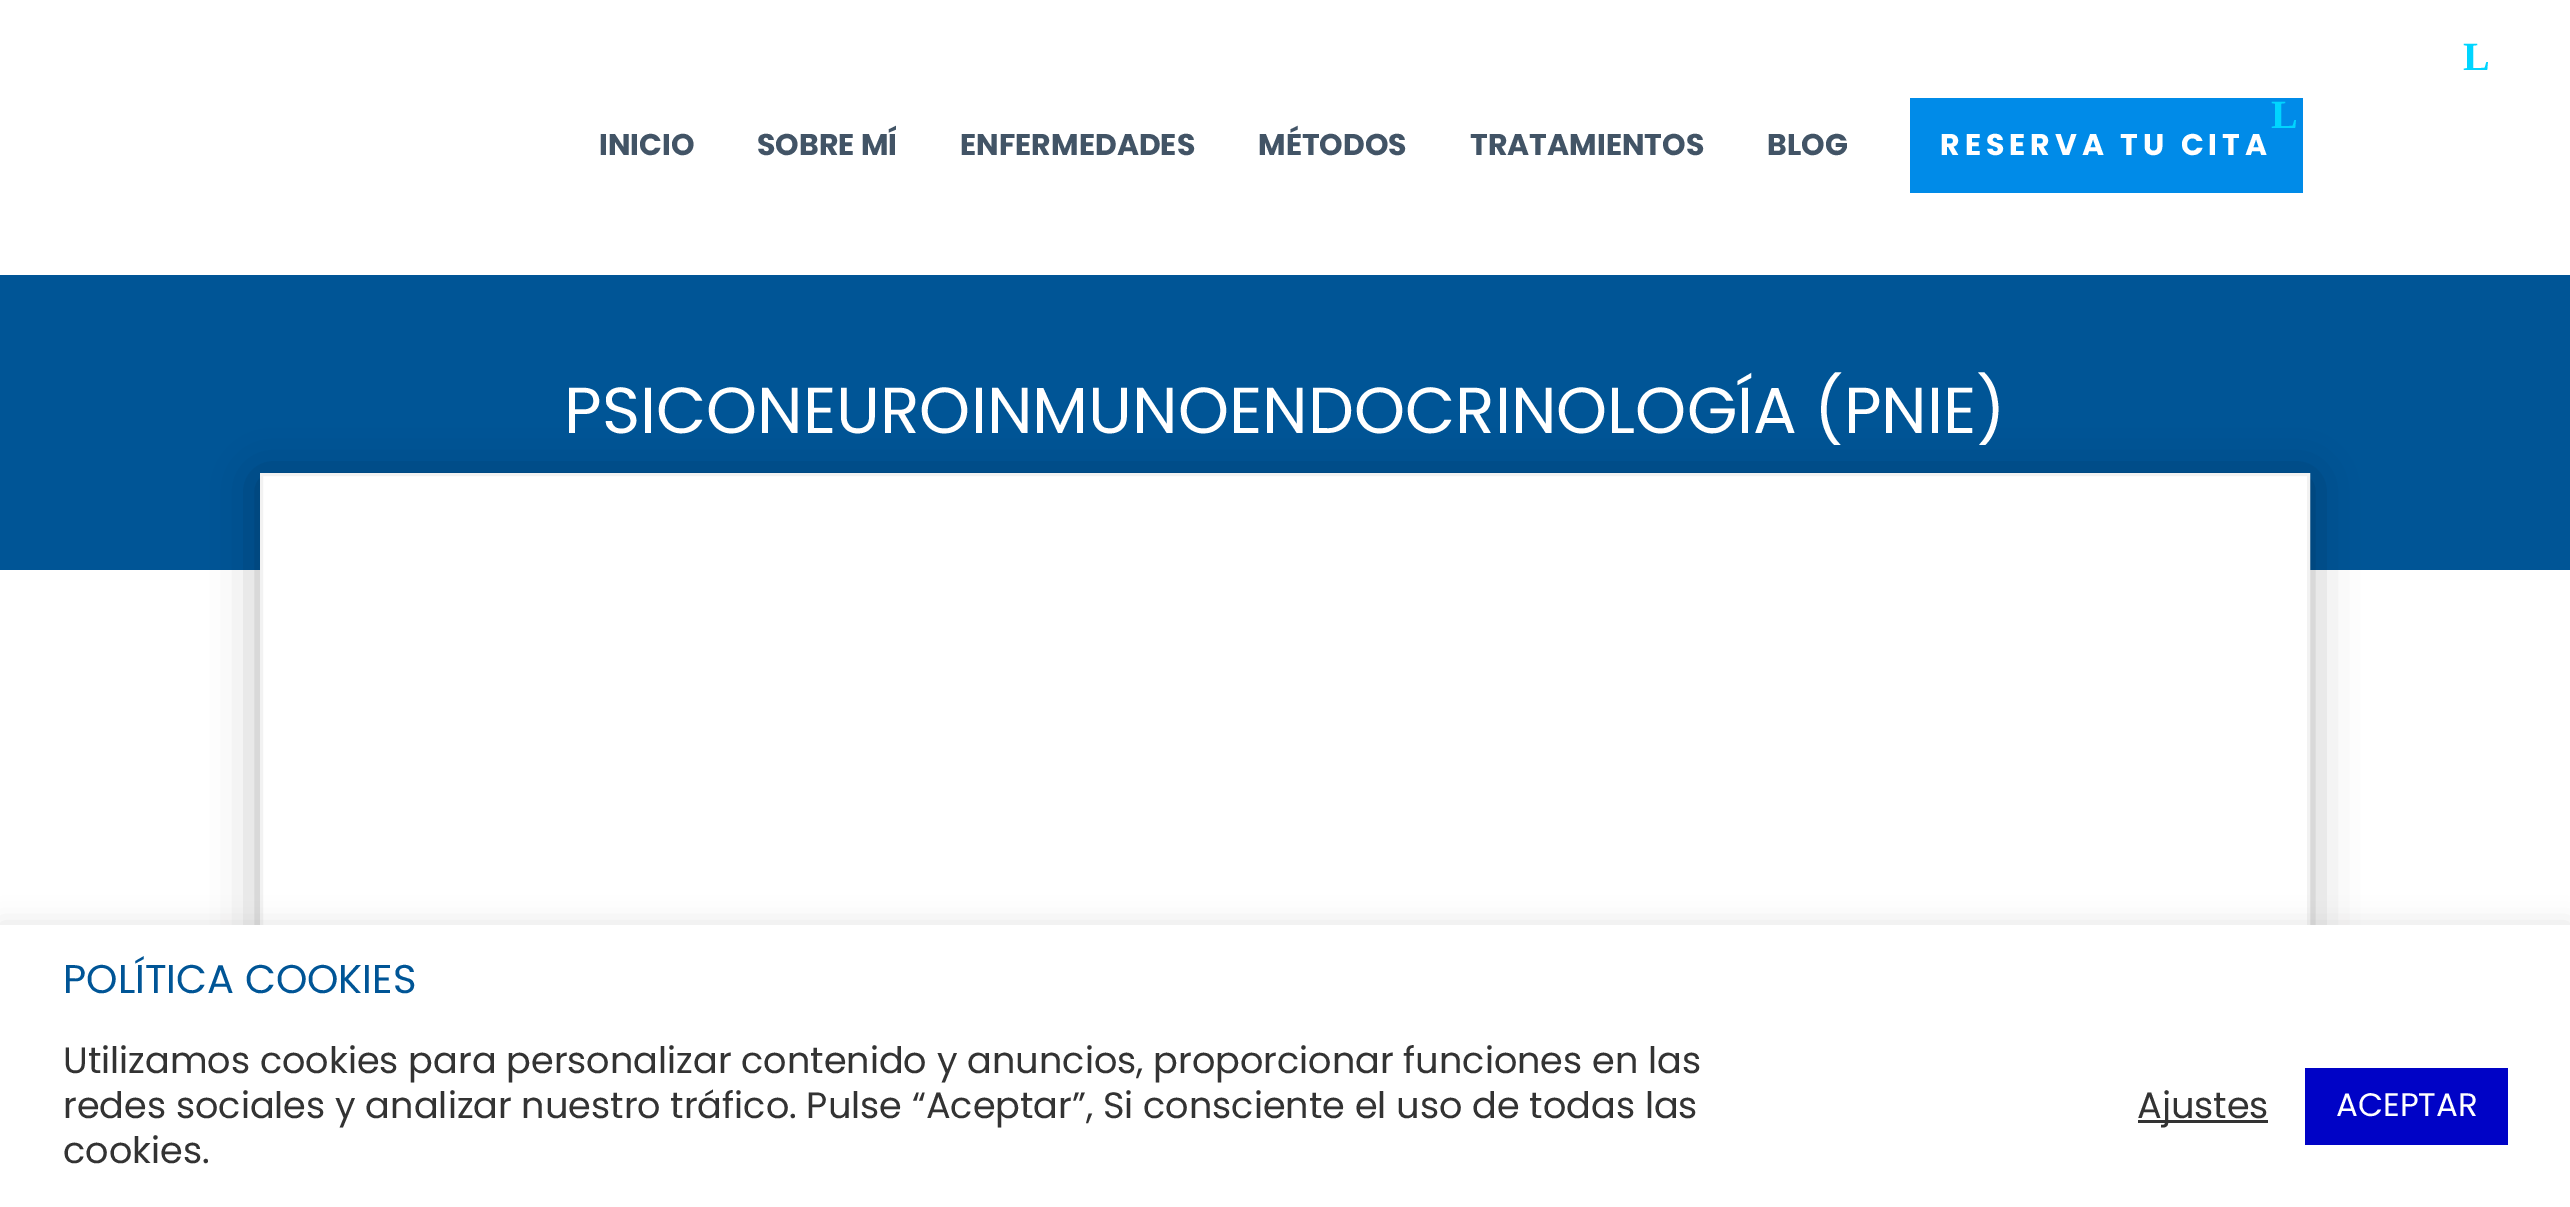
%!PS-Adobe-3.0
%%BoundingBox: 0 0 2570 1207
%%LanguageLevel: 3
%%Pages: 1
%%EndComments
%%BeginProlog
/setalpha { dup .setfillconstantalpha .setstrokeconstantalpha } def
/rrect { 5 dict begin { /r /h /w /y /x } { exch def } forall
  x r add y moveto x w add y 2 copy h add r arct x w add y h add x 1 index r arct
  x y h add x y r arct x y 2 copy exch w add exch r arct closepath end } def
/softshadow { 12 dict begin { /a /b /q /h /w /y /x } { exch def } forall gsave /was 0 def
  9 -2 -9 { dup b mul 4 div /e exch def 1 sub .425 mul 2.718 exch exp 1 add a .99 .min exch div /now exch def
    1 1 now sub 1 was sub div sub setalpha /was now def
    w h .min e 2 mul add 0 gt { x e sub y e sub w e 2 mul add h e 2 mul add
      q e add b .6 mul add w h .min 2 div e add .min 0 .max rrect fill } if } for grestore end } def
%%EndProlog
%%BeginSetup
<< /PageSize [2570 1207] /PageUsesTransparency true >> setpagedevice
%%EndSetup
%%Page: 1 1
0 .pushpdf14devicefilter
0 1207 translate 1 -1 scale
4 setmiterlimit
1 setgray
0 0 2570 1207 rectfill
0 0.545 0.91 setrgbcolor
1910 98 393 95 rectfill
0 0.333 0.588 setrgbcolor
0 275 2570 295 rectfill
0 setgray
260 478 2050 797 0 22.5 0.3 softshadow
1 setgray
263 476 2044 449 rectfill
0.949 setgray
3 setlinewidth
261.5 474.5 2047 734 rectstroke
0.675 0.671 0.671 setrgbcolor
0 923 2570 282 0 12.5 0.3 softshadow
1 setgray
0 925 2570 282 rectfill
0.2 setgray
2138 1120 130 3 rectfill
0 0.012 0.776 setrgbcolor
2305 1068 203 77 rectfill
/LiberationSerif-Bold [40 0 0 -40 0 0] selectfont
0 0.835 1 setrgbcolor
2463 70 moveto (L) show
/Poppins-Bold [30 0 0 -30 0 0] selectfont
0.259 0.329 0.4 setrgbcolor
599 155 moveto (INICIO) show
757 155 moveto (SOBRE MÍ) show
960 155 moveto (ENFERMEDADES) show
1258 155 moveto (MÉTODOS) show
1470 155 moveto (TRATAMIENTOS) show
1767 155 moveto (BLOG) show
/LiberationSerif-Bold [40 0 0 -40 0 0] selectfont
0 0.835 1 setrgbcolor
2271 128 moveto 5 0 (L) ashow
/Poppins-Bold [30 0 0 -30 0 0] selectfont
1 setgray
1940 155 moveto 5 0 (RESERVA TU CITA) ashow
/Poppins-Regular [65 0 0 -65 0 0] selectfont
564 433 moveto (PSICONEUROINMUNOENDOCRINOLOGÍA \(PNIE\)) show
/Poppins-Regular [40 0 0 -40 0 0] selectfont
0 0.333 0.588 setrgbcolor
63 993 moveto (POLÍTICA COOKIES) show
/Poppins-Regular [36.65 0 0 -36.65 0 0] selectfont
0.2 setgray
63 1073 moveto (Utilizamos cookies para personalizar contenido y anuncios, proporcionar funciones en las) show
63 1118 moveto (redes sociales y analizar nuestro tráfico. Pulse “Aceptar”, Si consciente el uso de todas las) show
63 1163 moveto (cookies.) show
2137 1118 moveto (Ajustes) show
/Poppins-Regular [32.5 0 0 -32.5 0 0] selectfont
1 setgray
2336 1116 moveto (ACEPTAR) show
.poppdf14devicefilter showpage
%%EOF
